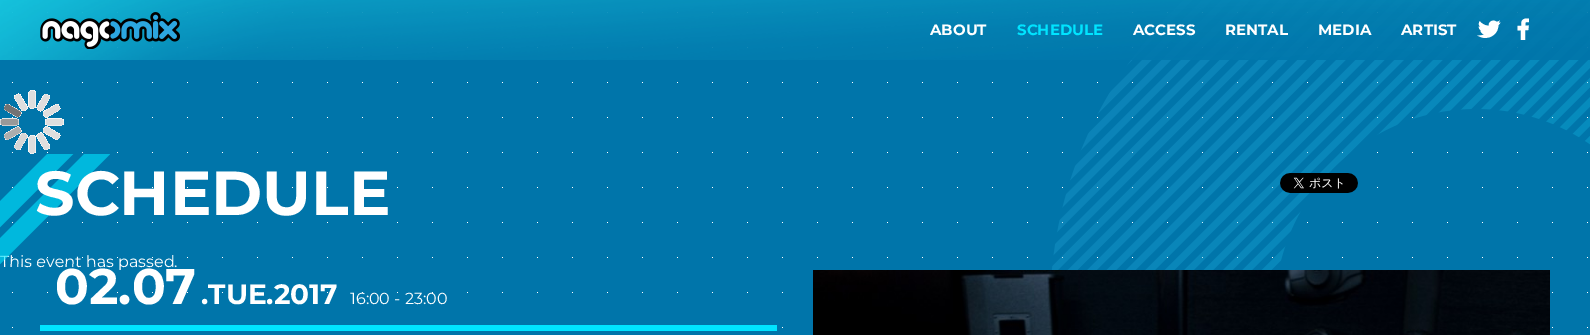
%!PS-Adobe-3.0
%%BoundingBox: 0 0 1590 335
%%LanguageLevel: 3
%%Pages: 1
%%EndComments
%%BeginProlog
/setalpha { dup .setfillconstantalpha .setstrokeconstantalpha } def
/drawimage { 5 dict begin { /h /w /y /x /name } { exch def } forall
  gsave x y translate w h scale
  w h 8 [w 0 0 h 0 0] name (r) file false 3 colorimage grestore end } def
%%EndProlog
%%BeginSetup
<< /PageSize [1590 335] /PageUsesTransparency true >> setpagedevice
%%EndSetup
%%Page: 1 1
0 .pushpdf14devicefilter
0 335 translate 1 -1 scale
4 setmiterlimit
0 0.459 0.667 setrgbcolor
0 0 1590 335 rectfill
(images/1.raw) 12 12 1576 316 drawimage
(images/2.raw) 1051 0 539 270 drawimage
0.92 setalpha
12 0 1578 60 rectfill
1 setalpha
(images/3.raw) 0 0 1590 60 drawimage
(images/4.raw) 40 12 140 37 drawimage
(images/5.raw) 0 90 64 64 drawimage
(images/7.raw) 1280 173 78 20 drawimage
0 0.894 1 setrgbcolor
40 325 737 6 rectfill
(images/8.raw) 813 270 737 65 drawimage
/Montserrat-Bold [15 0 0 -15 0 0] selectfont
1 setgray
930 35 moveto (ABOUT) show
0 0.894 1 setrgbcolor
1017 35 moveto (SCHEDULE) show
1 setgray
1133 35 moveto (ACCESS) show
1225 35 moveto (RENTAL) show
1318 35 moveto (MEDIA) show
1401 35 moveto (ARTIST) show
/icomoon-Bold [24 0 0 -24 0 0] selectfont
1477 40 moveto (t) show
1511 40 moveto (f) show
/Montserrat-Regular [16 0 0 -16 0 0] selectfont
0 267 moveto (This event has passed.) show
(images/6.raw) 0 154 110 110 drawimage
/Montserrat-Bold [62 0 0 -62 0 0] selectfont
35 215 moveto (SCHEDULE) show
/Montserrat-Bold [50 0 0 -50 0 0] selectfont
55 304 moveto (02.07) show
/Montserrat-Bold [28 0 0 -28 0 0] selectfont
201 304 moveto (.TUE.2017) show
/Montserrat-Regular [16 0 0 -16 0 0] selectfont
350 304 moveto (16:00 - 23:00) show
.poppdf14devicefilter showpage
%%EOF
